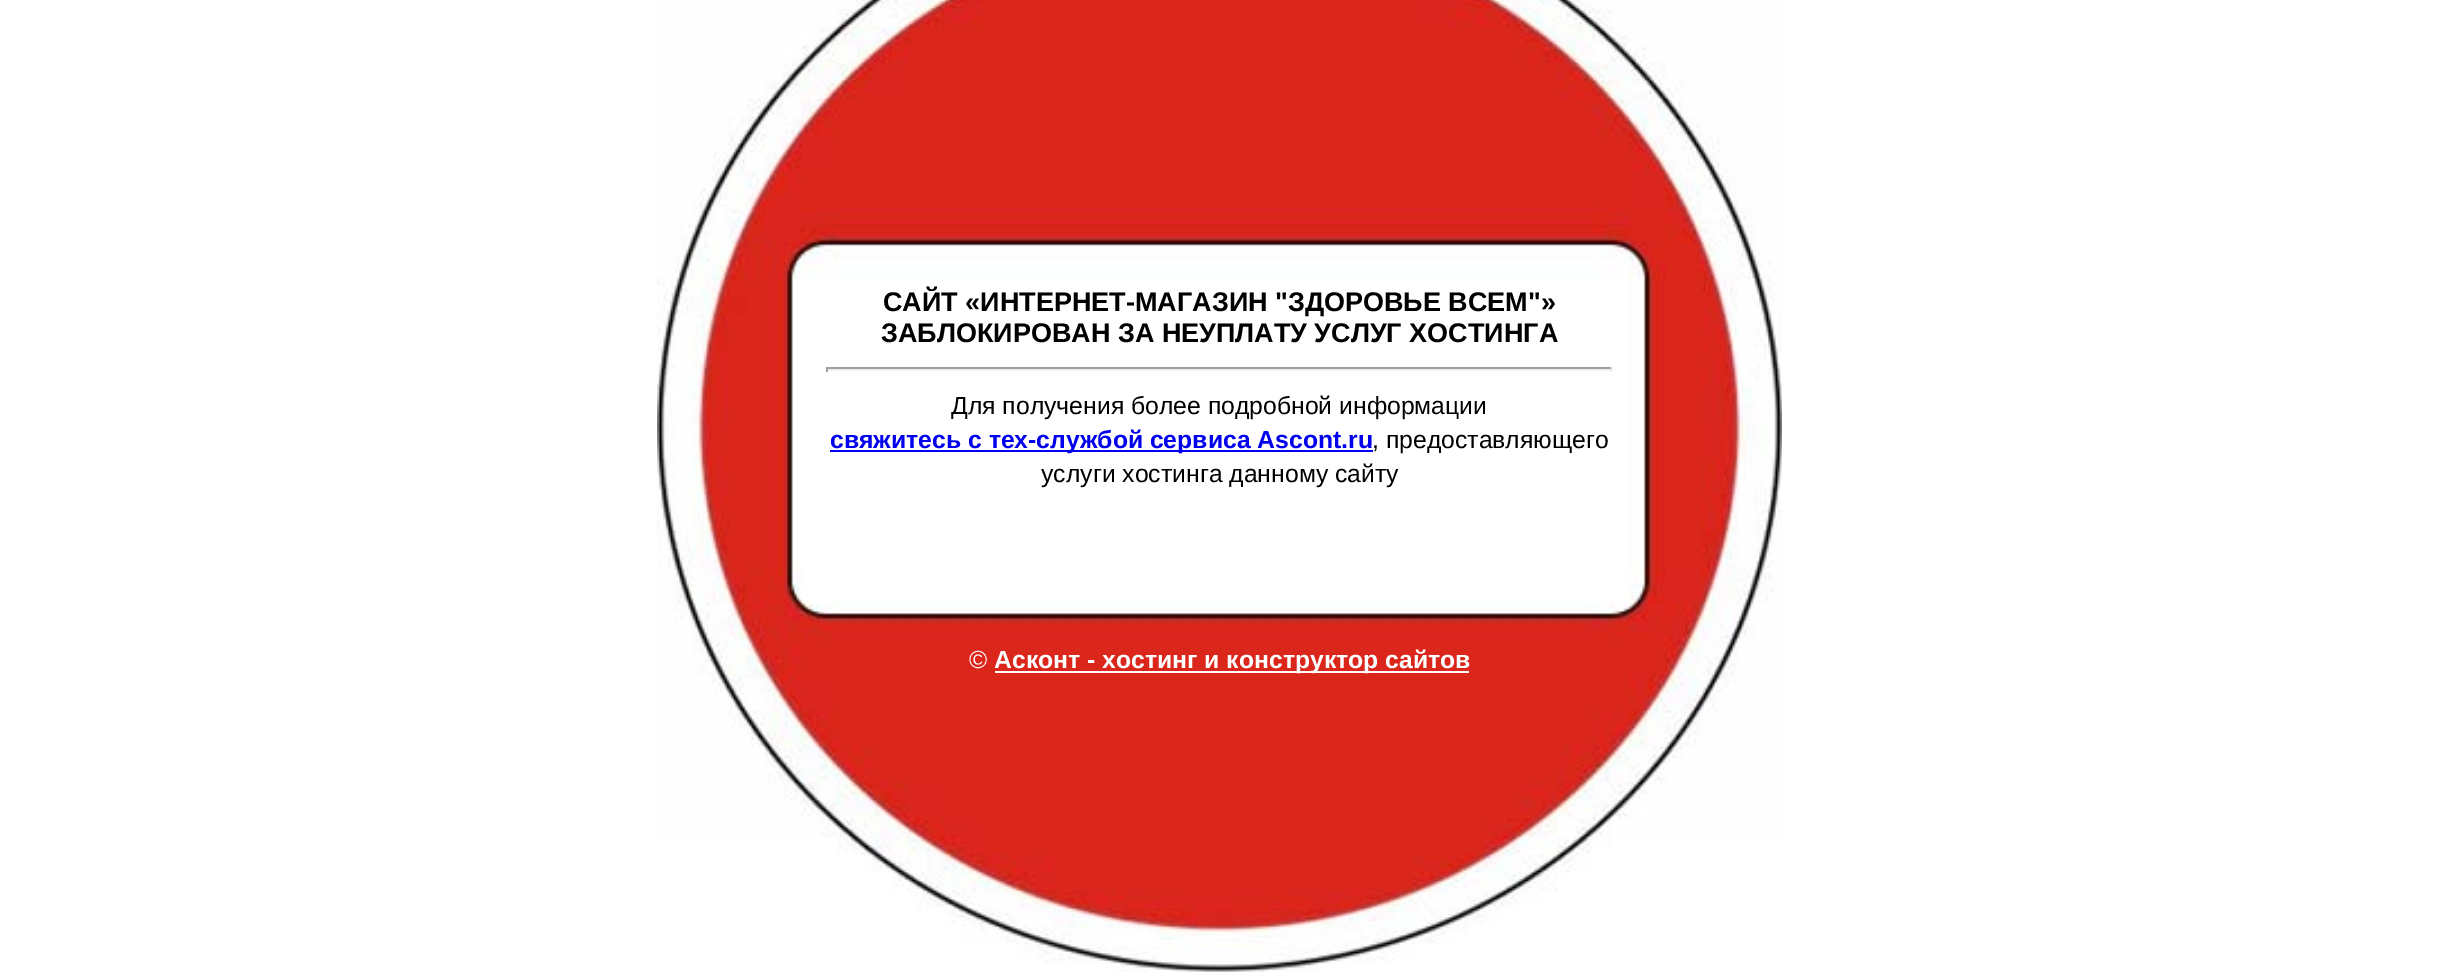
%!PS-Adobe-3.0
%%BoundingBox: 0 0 2437 972
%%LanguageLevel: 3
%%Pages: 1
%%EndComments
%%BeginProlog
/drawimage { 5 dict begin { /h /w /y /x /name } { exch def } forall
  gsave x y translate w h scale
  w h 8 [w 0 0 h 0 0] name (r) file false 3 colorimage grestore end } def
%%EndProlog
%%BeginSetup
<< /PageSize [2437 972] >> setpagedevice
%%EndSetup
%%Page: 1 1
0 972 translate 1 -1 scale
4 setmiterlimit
1 setgray
0 0 2437 972 rectfill
(images/1.raw) 657 0 1125 972 drawimage
0.624 setgray
826 367 787 2 rectfill
0.933 setgray
1611 367 2 5 rectfill
826 369 787 2 rectfill
0.624 setgray
826 367 2 5 rectfill
0 0 0.933 setrgbcolor
830 450 543 2 rectfill
1 setgray
995 671 474 2 rectfill
/LiberationSans-Bold [27 0 0 -27 0 0] selectfont
0 setgray
883 311 moveto (CАЙТ «ИНТЕРНЕТ-МАГАЗИН "ЗДОРОВЬЕ ВСЕМ"») show
881 342 moveto (ЗАБЛОКИРОВАН ЗА НЕУПЛАТУ УСЛУГ ХОСТИНГА) show
/LiberationSans-Regular [24.75 0 0 -24.75 0 0] selectfont
951 414 moveto (Для получения более подробной информации) show
/LiberationSans-Bold [24.75 0 0 -24.75 0 0] selectfont
0 0 0.933 setrgbcolor
830 448 moveto (свяжитесь с тех-службой сервиса Ascont.ru) show
/LiberationSans-Regular [24.75 0 0 -24.75 0 0] selectfont
0 setgray
1372 448 moveto (, предоставляющего) show
1041 482 moveto (услуги хостинга данному сайту) show
1 setgray
969 668 moveto (©) show
/LiberationSans-Bold [24.75 0 0 -24.75 0 0] selectfont
994 668 moveto (Асконт - хостинг и конструктор сайтов) show
showpage
%%EOF
